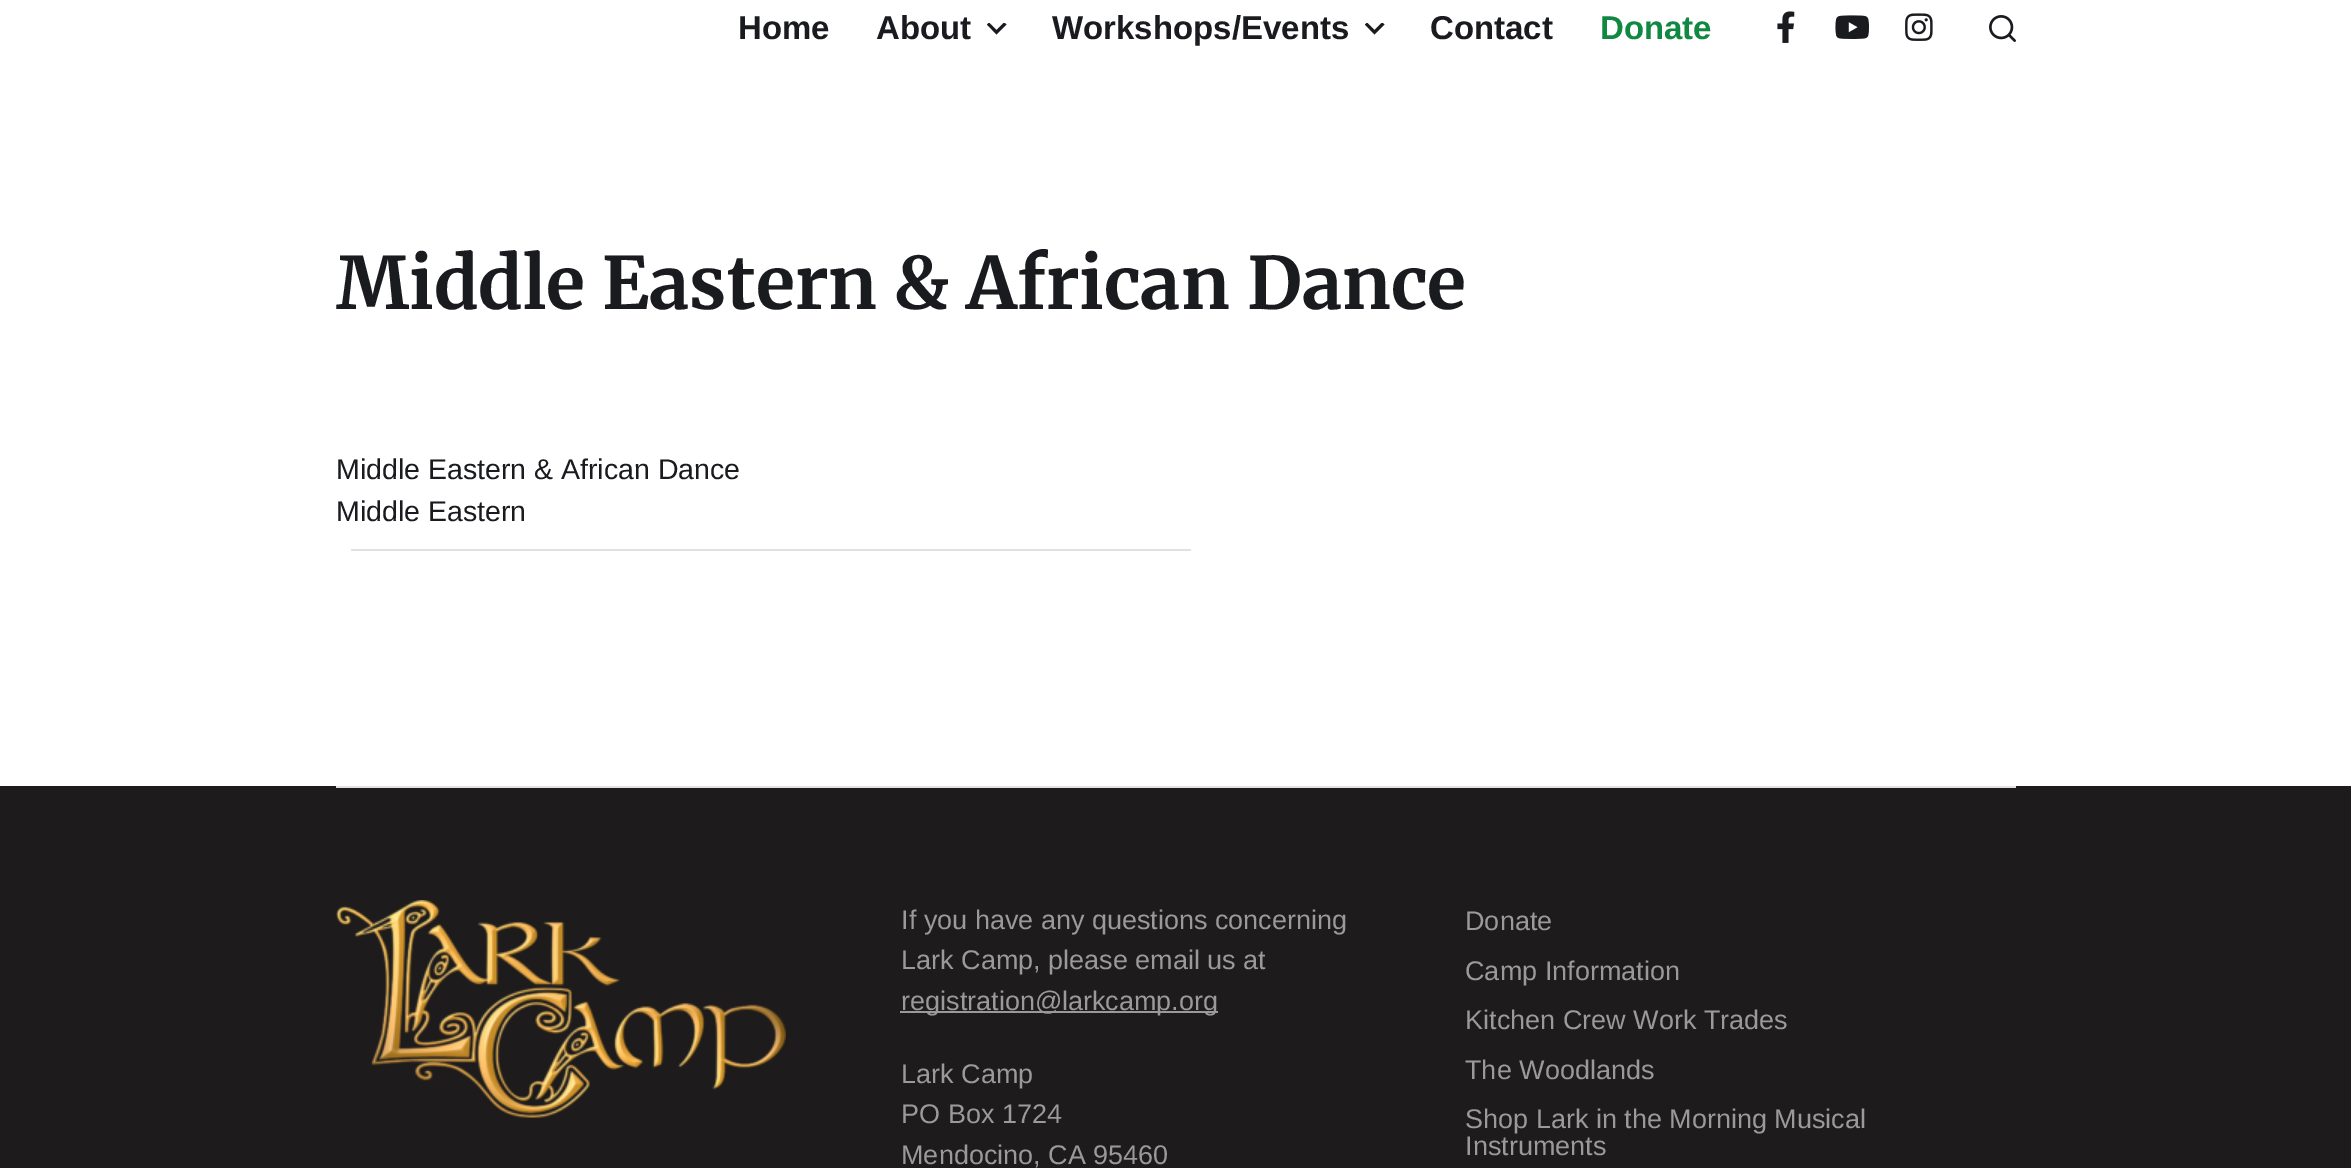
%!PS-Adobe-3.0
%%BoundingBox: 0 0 2351 1168
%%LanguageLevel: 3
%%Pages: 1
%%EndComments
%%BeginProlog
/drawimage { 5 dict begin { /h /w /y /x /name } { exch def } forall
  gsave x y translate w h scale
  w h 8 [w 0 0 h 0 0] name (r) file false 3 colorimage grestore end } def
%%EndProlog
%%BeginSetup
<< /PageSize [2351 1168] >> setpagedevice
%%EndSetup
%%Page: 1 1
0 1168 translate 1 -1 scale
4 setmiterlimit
1 setgray
0 0 2351 1168 rectfill
gsave
987 23 20 12 rectclip
0.102 0.106 0.122 setrgbcolor
newpath 996.5 30 moveto 1004 22.5 lineto 1006.5 24.5 lineto 996.5 34.5 lineto 987 24.5 lineto 989 22.5 lineto closepath eofill
grestore
gsave
1365 23 20 12 rectclip
0.102 0.106 0.122 setrgbcolor
newpath 1374.5 30 moveto 1382 22.5 lineto 1384.5 24.5 lineto 1374.5 34.5 lineto 1365 24.5 lineto 1367 22.5 lineto closepath eofill
grestore
(images/1.raw) 1777 11 18 32 drawimage
(images/2.raw) 1835 15 34 24 drawimage
(images/3.raw) 1905 13 28 28 drawimage
(images/4.raw) 1989 15 27 27 drawimage
0.882 0.882 0.89 setrgbcolor
351 549 840 2 rectfill
0.114 0.106 0.106 setrgbcolor
0 786 2351 382 rectfill
0.882 0.882 0.89 setrgbcolor
336 786 1680 2 rectfill
(images/5.raw) 336 900 450 218 drawimage
0.604 setgray
900 1011 318 2 rectfill
/LiberationSans-Bold [33 0 0 -33 0 0] selectfont
0.102 0.106 0.122 setrgbcolor
738 39 moveto (Home) show
876 39 moveto (About) show
1052 39 moveto (Workshops/Events) show
1430 39 moveto (Contact) show
0.067 0.533 0.255 setrgbcolor
1600 39 moveto (Donate) show
/Merriweather-Bold [72 0 0 -72 0 0] selectfont
0.102 0.106 0.122 setrgbcolor
336 309 moveto (Middle Eastern & African Dance) show
/LiberationSans-Regular [28.5 0 0 -28.5 0 0] selectfont
336 479 moveto (Middle Eastern & African Dance) show
336 521 moveto (Middle Eastern) show
/LiberationSans-Regular [27 0 0 -27 0 0] selectfont
0.604 setgray
901 929 moveto (If you have any questions concerning) show
901 969 moveto (Lark Camp, please email us at) show
901 1010 moveto (registration@larkcamp.org) show
901 1083 moveto (Lark Camp) show
901 1123 moveto (PO Box 1724) show
901 1164 moveto (Mendocino, CA 95460) show
1465 930 moveto (Donate) show
1465 980 moveto (Camp Information) show
1465 1029 moveto (Kitchen Crew Work Trades) show
1465 1079 moveto (The Woodlands) show
1465 1128 moveto (Shop Lark in the Morning Musical) show
1465 1155 moveto (Instruments) show
showpage
%%EOF
